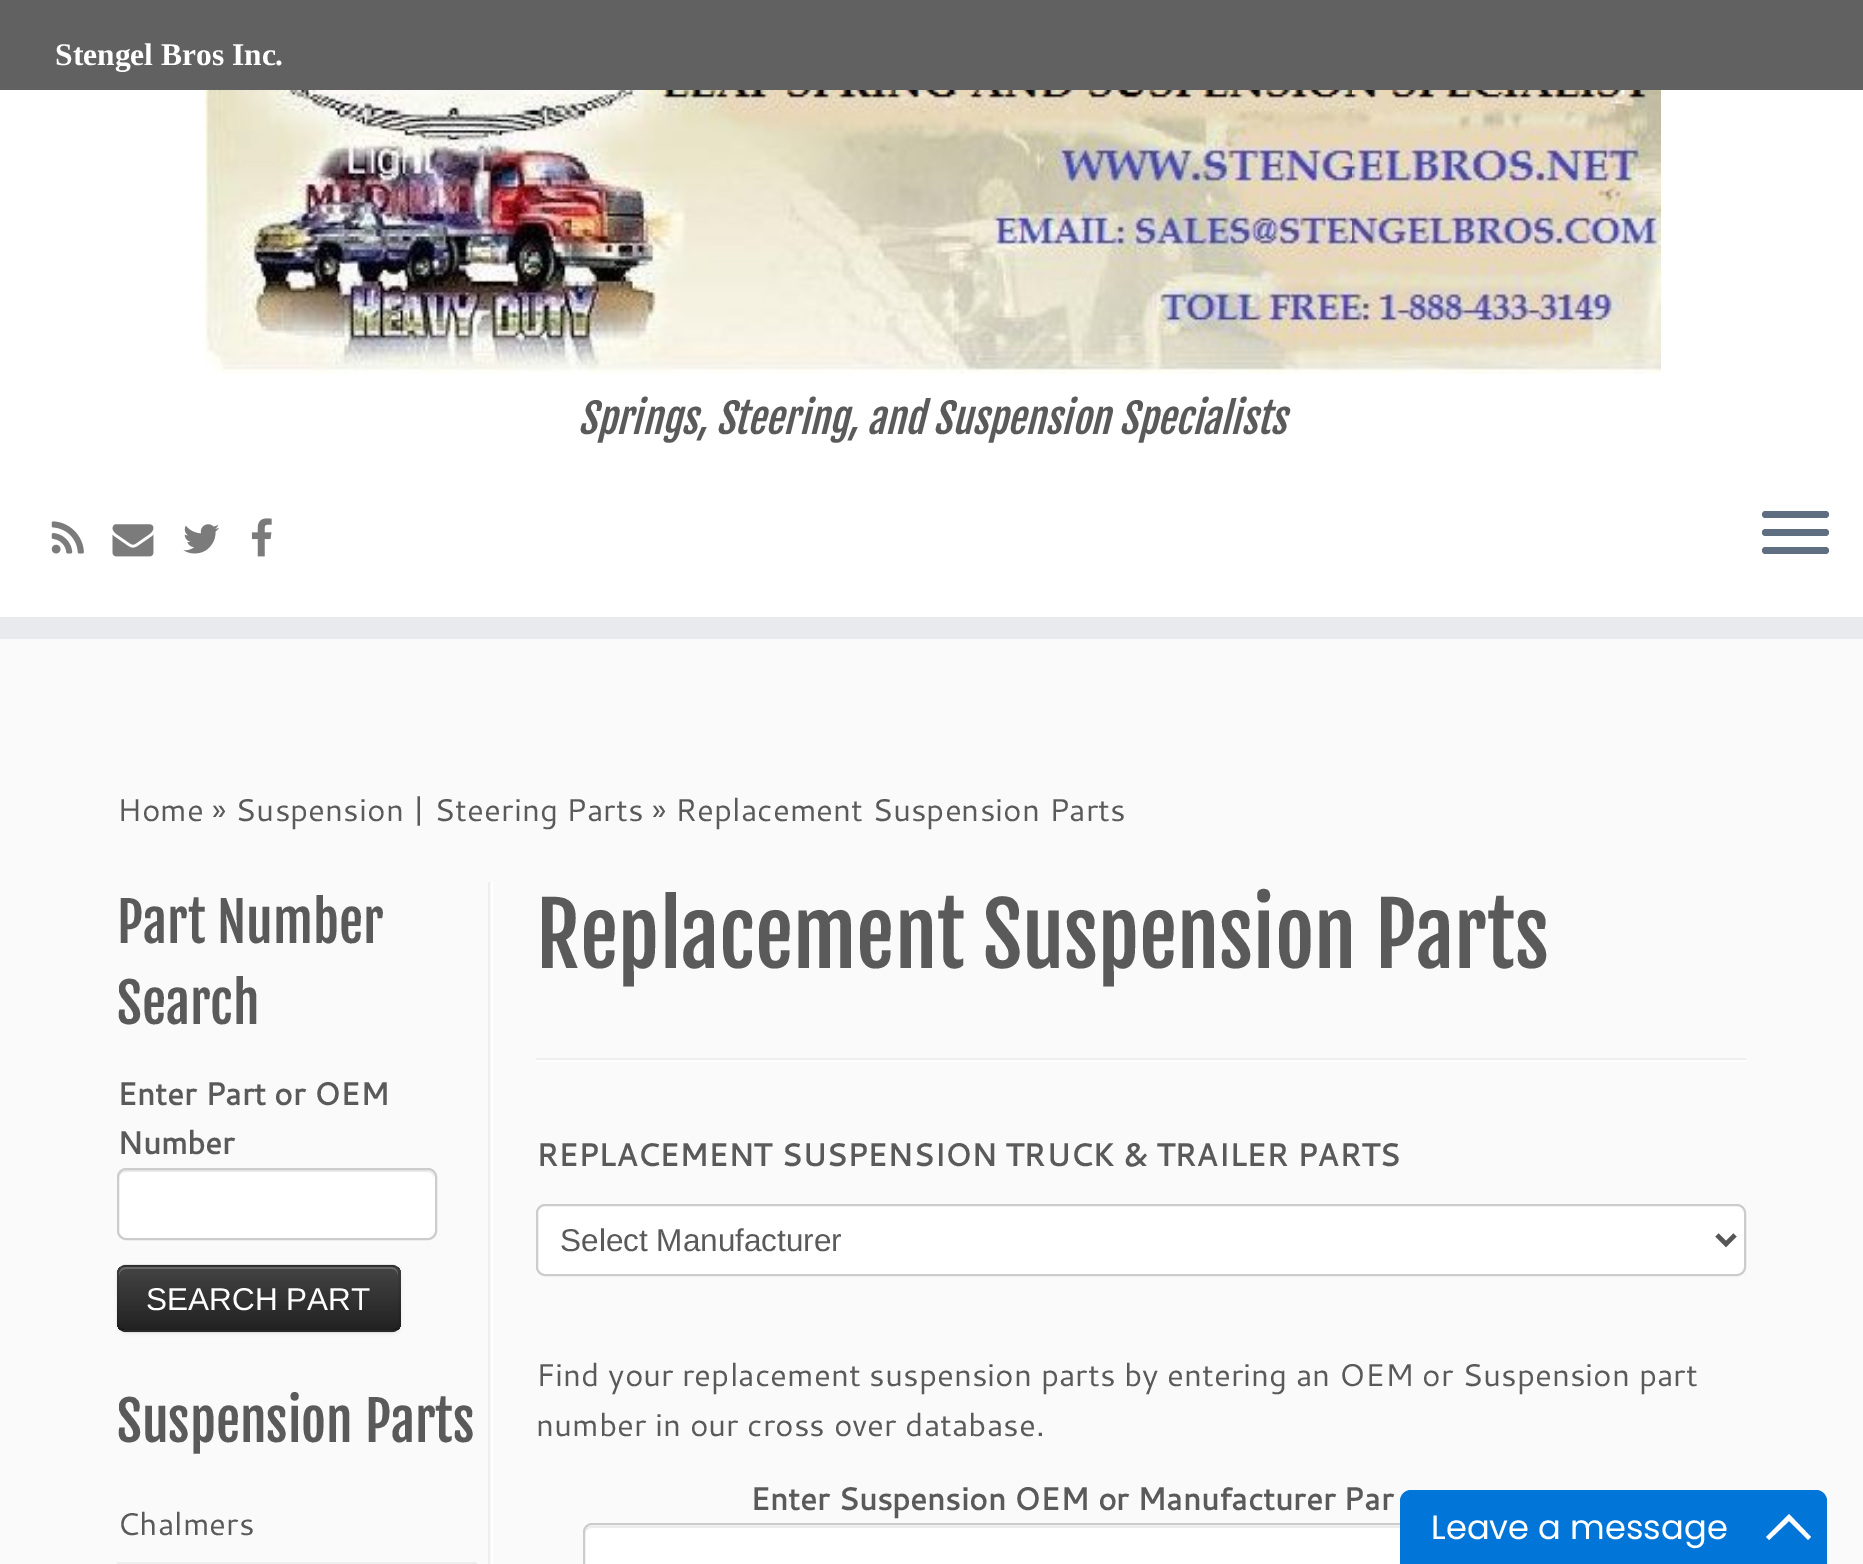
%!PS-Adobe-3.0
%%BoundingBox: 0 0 1863 1564
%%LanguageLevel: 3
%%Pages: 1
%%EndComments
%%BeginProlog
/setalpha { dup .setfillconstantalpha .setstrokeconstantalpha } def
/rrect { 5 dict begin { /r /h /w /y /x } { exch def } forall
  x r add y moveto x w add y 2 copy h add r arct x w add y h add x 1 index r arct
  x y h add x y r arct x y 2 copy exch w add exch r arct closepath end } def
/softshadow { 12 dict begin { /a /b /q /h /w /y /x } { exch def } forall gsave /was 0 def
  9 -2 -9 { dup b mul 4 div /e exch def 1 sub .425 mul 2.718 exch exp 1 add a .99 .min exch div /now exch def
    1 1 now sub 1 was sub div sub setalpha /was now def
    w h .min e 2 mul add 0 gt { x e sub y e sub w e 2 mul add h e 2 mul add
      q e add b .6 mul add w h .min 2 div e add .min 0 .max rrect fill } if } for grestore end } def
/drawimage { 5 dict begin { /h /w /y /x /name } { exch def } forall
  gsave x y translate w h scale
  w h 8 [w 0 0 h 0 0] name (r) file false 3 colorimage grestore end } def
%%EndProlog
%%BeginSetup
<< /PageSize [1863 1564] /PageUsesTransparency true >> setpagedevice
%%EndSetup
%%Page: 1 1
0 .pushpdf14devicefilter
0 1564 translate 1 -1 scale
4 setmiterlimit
0.98 setgray
0 0 1863 1564 rectfill
0.38 setgray
0 0 1863 90 rectfill
1 setgray
0 90 1863 527 rectfill
0.914 0.918 0.933 setrgbcolor
0 617 1863 22 rectfill
(images/1.raw) 204 90 1457 284 drawimage
(images/2.raw) 51 521 33 33 drawimage
(images/3.raw) 112 524 42 33 drawimage
(images/4.raw) 183 524 36 30 drawimage
(images/5.raw) 251 518 21 39 drawimage
0.373 0.435 0.506 setrgbcolor
1762 511 67 7 3.5 rrect fill
1762 529 67 7 3.5 rrect fill
1762 547 67 7 3.5 rrect fill
0.933 setgray
488 882 2 682 rectfill
1 setgray
117 1168 320 72 9 rrect fill
0.925 setgray
newpath 126 1172 moveto 428 1172 lineto 431 1172 434 1175 434 1179 curveto 434 1177 lineto 434 1173 431 1170 427 1170 curveto 126 1170 lineto 122 1170 119 1173 119 1177 curveto 119 1179 lineto 119 1175 122 1172 126 1172 curveto closepath fill
0.8 setgray
2 setlinewidth
118 1169 318 70 8 rrect stroke
0 setgray
117 1267 284 67 9 2 0.05 softshadow
0.212 setgray
117 1265 284 67 9 rrect fill
gsave
117 1265 284 67 9 rrect clip newpath
gsave newpath 117 1267 moveto 401 1267 lineto 401 1330 lineto 117 1330 lineto closepath clip newpath
<< /ShadingType 2 /ColorSpace /DeviceRGB /Coords [259 1267 259 1330] /Extend [true true] /Function << /FunctionType 2 /Domain [0 1] /C0 [0.267 0.267 0.267] /C1 [0.133 0.133 0.133] /N 1 >> >> shfill grestore
grestore
0.2 setalpha
1 setgray
newpath 126 1269 moveto 392 1269 lineto 395 1269 398 1272 398 1276 curveto 398 1274 lineto 398 1270 395 1267 391 1267 curveto 126 1267 lineto 122 1267 119 1270 119 1274 curveto 119 1276 lineto 119 1272 122 1269 126 1269 curveto closepath fill
0.25 setalpha
0 setgray
2.2 setlinewidth
newpath 397 1328.5 moveto 395.5 1330 393.5 1331 391.5 1331 curveto 126 1331 lineto 124 1331 122 1330 120.5 1328.5 curveto stroke
0.1 setalpha
newpath 120.5 1328.5 moveto 119 1327 118 1325 118 1323 curveto 118 1273.5 lineto 118 1271.5 119 1269.5 120.5 1268 curveto 122 1266.5 124 1265.5 126 1265.5 curveto 391.5 1265.5 lineto 393.5 1265.5 395.5 1266.5 397 1268 curveto 398.5 1269.5 399.5 1271.5 399.5 1273.5 curveto 399.5 1323 lineto 399.5 1325 398.5 1327 397 1328.5 curveto stroke
1 setalpha
1 setgray
491 882 2 682 rectfill
0.933 setgray
117 1562 360 2 rectfill
536 1058 1210 2 rectfill
1 setgray
536 1060 1210 2 rectfill
537 1205 1208 70 8 rrect gsave fill grestore
0.8 setgray
2 setlinewidth
stroke
0.333 setgray
4.5 setlinewidth
newpath 1717 1235 moveto 1726 1244 lineto 1735 1235 lineto stroke
1 setgray
583 1523 999 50 9 rrect fill
0.925 setgray
newpath 592 1528 moveto 1573 1528 lineto 1576 1528 1580 1531 1580 1534 curveto 1580 1533 lineto 1580 1529 1577 1526 1573 1526 curveto 592 1526 lineto 588 1526 585 1529 585 1533 curveto 585 1534 lineto 585 1531 588 1528 592 1528 curveto closepath fill
0.8 setgray
2 setlinewidth
584 1524 997 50 8 rrect stroke
0.008 0.459 0.847 setrgbcolor
newpath 1411 1490 moveto 1816 1490 lineto 1822 1490 1827 1495 1827 1501 curveto 1827 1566 lineto 1400 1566 lineto 1400 1501 lineto 1400 1495 1405 1490 1411 1490 curveto closepath fill
1 setgray
newpath 1789 1514 moveto 1811 1537 lineto 1808 1540 lineto 1789 1521 lineto 1769 1540 lineto 1766 1537 lineto closepath fill
/LiberationSerif-Bold [31.5 0 0 -31.5 0 0] selectfont
55 65 moveto (Stengel Bros Inc.) show
/FjallaOne-Italic [40.5 0 0 -40.5 0 0] selectfont
0.353 setgray
578 434 moveto (Springs, Steering, and Suspension Specialists) show
/Cantarell-Regular [31.5 0 0 -31.5 0 0] selectfont
117 821 moveto (Home » Suspension | Steering Parts » Replacement Suspension Parts) show
/FjallaOne-Regular [54 0 0 -54 0 0] selectfont
117 943 moveto (Part Number) show
117 1024 moveto (Search) show
/Cantarell-Bold [31.5 0 0 -31.5 0 0] selectfont
117 1105 moveto (Enter Part or OEM) show
117 1154 moveto (Number) show
/LiberationSans-Regular [31.5 0 0 -31.5 0 0] selectfont
1 setgray
146 1310 moveto (SEARCH PART) show
/FjallaOne-Regular [54 0 0 -54 0 0] selectfont
0.353 setgray
117 1442 moveto (Suspension Parts) show
/Cantarell-Regular [31.5 0 0 -31.5 0 0] selectfont
117 1535 moveto (Chalmers) show
/FjallaOne-Regular [85.5 0 0 -85.5 0 0] selectfont
536 968 moveto (Replacement Suspension Parts) show
/Cantarell-Bold [31.5 0 0 -31.5 0 0] selectfont
536 1166 moveto (REPLACEMENT SUSPENSION TRUCK & TRAILER PARTS) show
/LiberationSans-Regular [31.5 0 0 -31.5 0 0] selectfont
560 1251 moveto (Select Manufacturer) show
/Cantarell-Regular [31.5 0 0 -31.5 0 0] selectfont
536 1386 moveto (Find your replacement suspension parts by entering an OEM or Suspension part) show
536 1436 moveto (number in our cross over database.) show
/Cantarell-Bold [31.5 0 0 -31.5 0 0] selectfont
750 1510 moveto (Enter Suspension OEM or Manufacturer Par) show
/Poppins-Regular [33.75 0 0 -33.75 0 0] selectfont
1 setgray
1431 1539 moveto (Leave a message) show
.poppdf14devicefilter showpage
%%EOF
